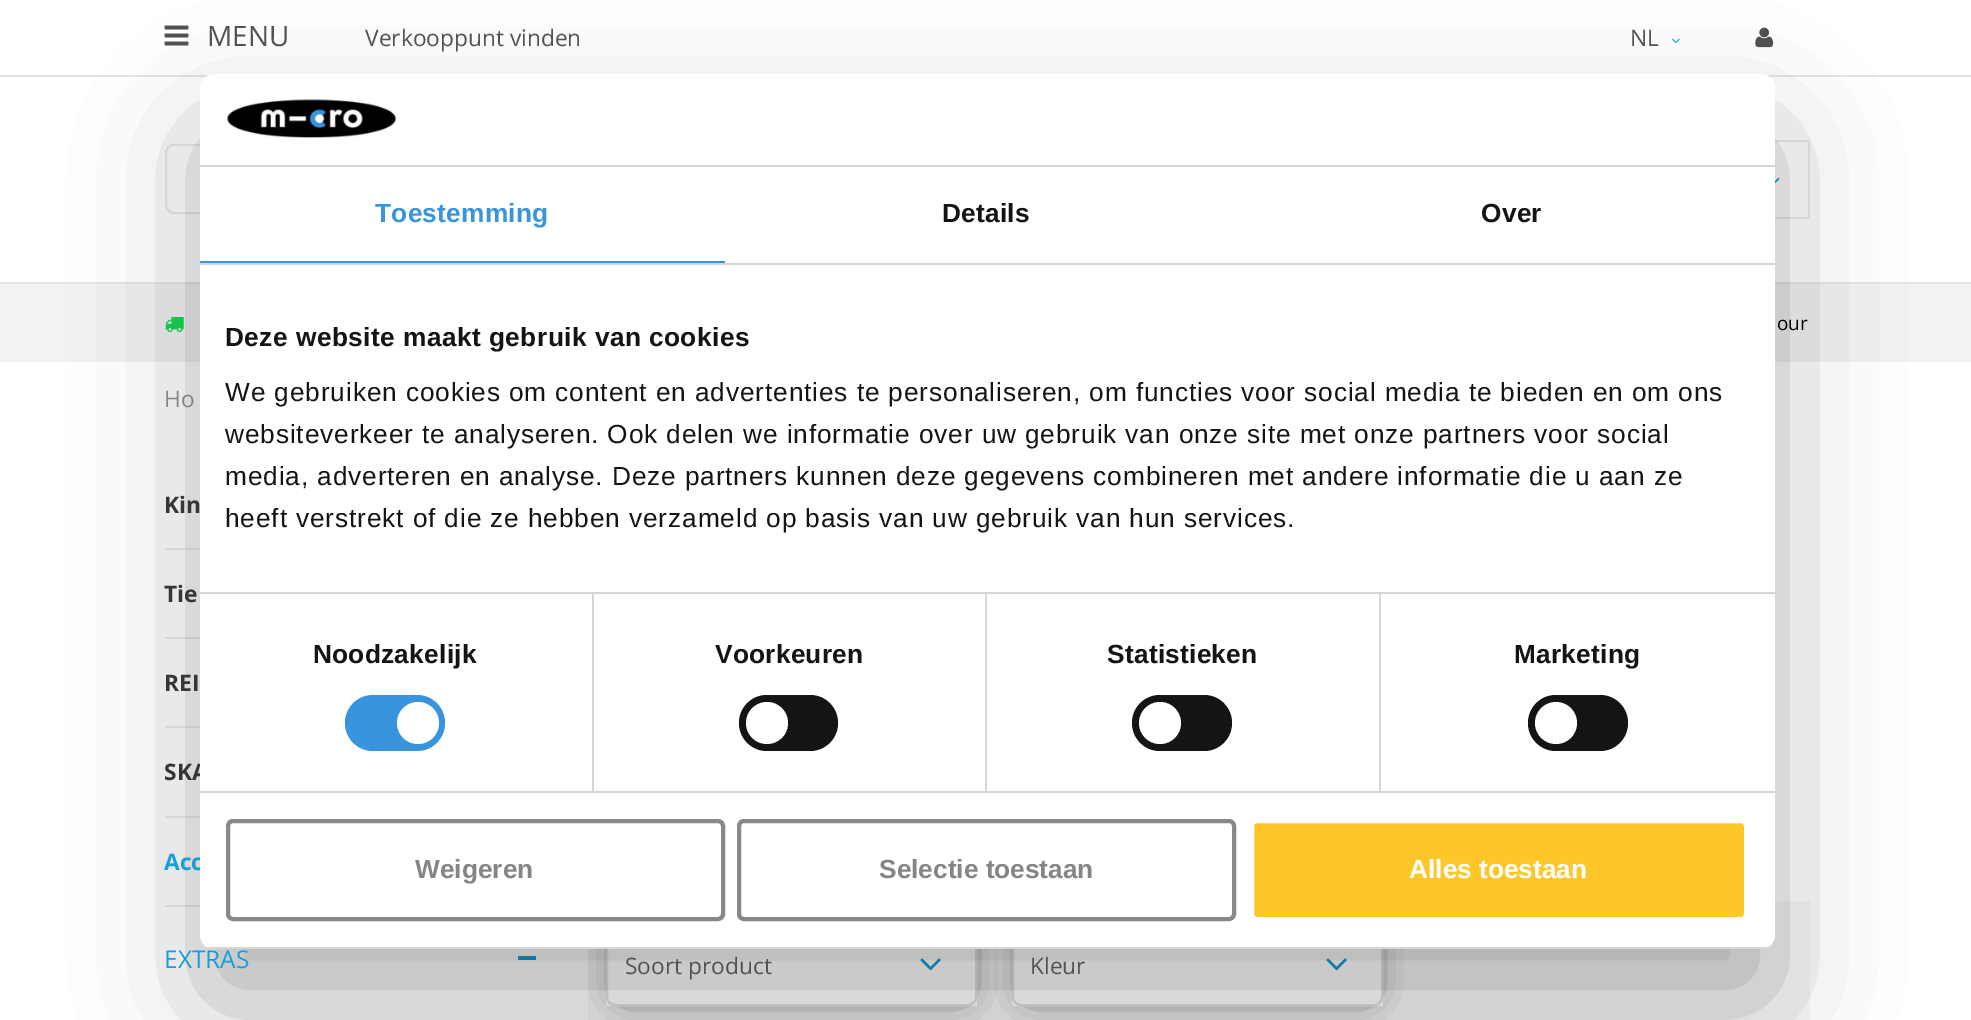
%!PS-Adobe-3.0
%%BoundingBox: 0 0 1971 1020
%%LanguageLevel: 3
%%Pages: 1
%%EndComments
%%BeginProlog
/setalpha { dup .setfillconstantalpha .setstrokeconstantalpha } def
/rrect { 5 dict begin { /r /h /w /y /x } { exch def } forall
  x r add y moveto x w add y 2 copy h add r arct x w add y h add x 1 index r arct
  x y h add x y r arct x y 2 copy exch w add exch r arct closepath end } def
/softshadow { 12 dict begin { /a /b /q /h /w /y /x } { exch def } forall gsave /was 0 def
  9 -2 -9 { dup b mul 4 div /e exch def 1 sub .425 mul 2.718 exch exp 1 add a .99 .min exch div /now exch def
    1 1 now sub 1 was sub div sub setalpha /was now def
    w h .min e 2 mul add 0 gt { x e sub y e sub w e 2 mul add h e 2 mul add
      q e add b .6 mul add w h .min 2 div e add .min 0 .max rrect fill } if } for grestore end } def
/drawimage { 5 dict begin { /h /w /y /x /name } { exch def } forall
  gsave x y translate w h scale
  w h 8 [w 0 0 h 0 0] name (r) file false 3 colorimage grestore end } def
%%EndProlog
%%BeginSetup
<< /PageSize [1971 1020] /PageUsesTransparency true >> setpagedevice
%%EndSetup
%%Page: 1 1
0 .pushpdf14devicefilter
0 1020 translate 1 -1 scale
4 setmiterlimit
1 setgray
0 0 1971 1020 rectfill
(images/1.raw) 164 25 25 21 drawimage
(images/2.raw) 1671 38 9 6 drawimage
(images/3.raw) 1755 27 19 21 drawimage
0.898 setgray
0 75 1971 2 rectfill
0 282 1971 2 rectfill
0.922 setgray
2 setlinewidth
166 145 348 68 8 rrect stroke
1775 140 35 2 rectfill
1808 140 2 79 rectfill
1775 217 35 2 rectfill
(images/4.raw) 1775 177 5 7 drawimage
0.949 setgray
0 284 1971 78 rectfill
(images/5.raw) 165 317 19 16 drawimage
0.925 setgray
165 548 35 2 rectfill
165 637 35 2 rectfill
165 726 35 2 rectfill
165 816 35 2 rectfill
165 905 35 2 rectfill
0.094 0.616 0.847 setrgbcolor
518 956 18 4 rectfill
0.969 setgray
588 901 1222 119 rectfill
0 setgray
625 938 336 53 0 16.5 1 softshadow
1 setgray
606 949 371 57 rectfill
0.882 setgray
607 920 369 85 8 rrect stroke
(images/6.raw) 920 958 21 13 drawimage
0 setgray
1031 938 336 53 0 16.5 1 softshadow
1 setgray
1012 949 371 57 rectfill
0.882 setgray
1013 920 369 85 8 rrect stroke
(images/6.raw) 1326 958 21 13 drawimage
0 setgray
200 130 1575 875 14 59.5 0.3 softshadow
/OpenSans-Regular [28 0 0 -28 0 0] selectfont
0.322 setgray
207 46 moveto (MENU) show
/OpenSans-Regular [22.75 0 0 -22.75 0 0] selectfont
365 46 moveto (Verkooppunt vinden) show
1630 46 moveto (NL) show
/OpenSans-Regular [19 0 0 -19 0 0] selectfont
0 setgray
1777 330 moveto (our) show
/OpenSans-Regular [22.75 0 0 -22.75 0 0] selectfont
0.522 setgray
164 407 moveto (Ho) show
/OpenSans-Bold [22.75 0 0 -22.75 0 0] selectfont
0.212 setgray
164 513 moveto (Kin) show
164 602 moveto (Tie) show
164 691 moveto (REI) show
164 780 moveto (SKA) show
0.094 0.616 0.847 setrgbcolor
164 870 moveto (Acc) show
/OpenSans-Regular [24.5 0 0 -24.5 0 0] selectfont
164 968 moveto (EXTRAS) show
/OpenSans-Regular [22.75 0 0 -22.75 0 0] selectfont
0.322 setgray
625 974 moveto (Soort product) show
1030 974 moveto (Kleur) show
1 setgray
200 74 1575 875 14 rrect fill
0.839 setgray
200 165 1575 2 rectfill
(images/7.raw) 227 99 169 39 drawimage
200 263 1575 2 rectfill
0.22 0.58 0.867 setrgbcolor
200 261 525 2 rectfill
/LiberationSans-Bold [26.25 0 0 -26.25 0 0] selectfont
375 222 moveto 0.25 0 (Toestemming) ashow
0.078 setgray
942 222 moveto 0.25 0 (Details) ashow
1481 222 moveto 0.25 0 (Over) ashow
225 346 moveto 0.45 0 (Deze website maakt gebruik van cookies) ashow
/LiberationSans-Regular [26.25 0 0 -26.25 0 0] selectfont
225 401 moveto 0.88 0 (We gebruiken cookies om content en advertenties te personaliseren, om functies voor social media te bieden en om ons) ashow
225 443 moveto 0.88 0 (websiteverkeer te analyseren. Ook delen we informatie over uw gebruik van onze site met onze partners voor social) ashow
225 485 moveto 0.88 0 (media, adverteren en analyse. Deze partners kunnen deze gegevens combineren met andere informatie die u aan ze) ashow
225 527 moveto 0.88 0 (heeft verstrekt of die ze hebben verzameld op basis van uw gebruik van hun services.) ashow
0.839 setgray
200 791 1575 2 rectfill
592 593 2 198 rectfill
/LiberationSans-Bold [26.25 0 0 -26.25 0 0] selectfont
0.078 setgray
313 663 moveto 0.25 0 (Noodzakelijk) ashow
0.22 0.58 0.867 setrgbcolor
345 695 100 56 28 rrect fill
1 setgray
newpath 418 723 21 0 360 arc closepath fill
0.839 setgray
985 593 2 198 rectfill
0.078 setgray
715 663 moveto 0.25 0 (Voorkeuren) ashow
739 695 99 56 28 rrect fill
1 setgray
newpath 767 723 21 0 360 arc closepath fill
0.839 setgray
1379 593 2 198 rectfill
200 592 1575 2 rectfill
0.078 setgray
1107 663 moveto 0.25 0 (Statistieken) ashow
1132 695 100 56 28 rrect fill
1 setgray
newpath 1160 723 21 0 360 arc closepath fill
0.078 setgray
1514 663 moveto 0.25 0 (Marketing) ashow
1528 695 100 56 28 rrect fill
1 setgray
newpath 1556 723 21 0 360 arc closepath fill
gsave
200 74 1575 875 14 rrect clip newpath
0.839 setgray
200 947 1575 2 rectfill
grestore
0.533 setgray
4 setlinewidth
228 821 495 98 5 rrect stroke
0.522 setgray
415 878 moveto (Weigeren) show
0.533 setgray
739 821 495 98 5 rrect stroke
0.522 setgray
879 878 moveto (Selectie toestaan) show
0.992 0.776 0.161 setrgbcolor
1252 821 494 98 5 rrect gsave fill grestore
1 setgray
stroke
1409 878 moveto (Alles toestaan) show
.poppdf14devicefilter showpage
%%EOF
